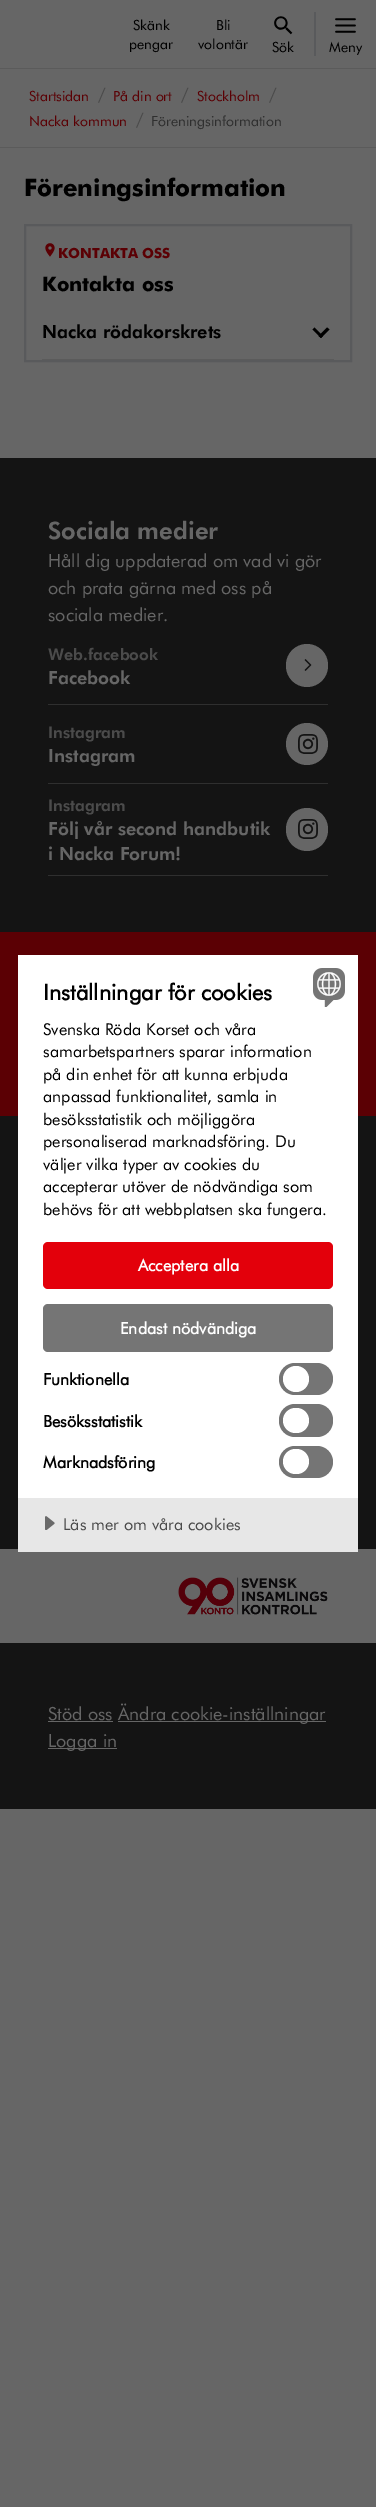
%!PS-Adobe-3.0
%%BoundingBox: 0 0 376 2507
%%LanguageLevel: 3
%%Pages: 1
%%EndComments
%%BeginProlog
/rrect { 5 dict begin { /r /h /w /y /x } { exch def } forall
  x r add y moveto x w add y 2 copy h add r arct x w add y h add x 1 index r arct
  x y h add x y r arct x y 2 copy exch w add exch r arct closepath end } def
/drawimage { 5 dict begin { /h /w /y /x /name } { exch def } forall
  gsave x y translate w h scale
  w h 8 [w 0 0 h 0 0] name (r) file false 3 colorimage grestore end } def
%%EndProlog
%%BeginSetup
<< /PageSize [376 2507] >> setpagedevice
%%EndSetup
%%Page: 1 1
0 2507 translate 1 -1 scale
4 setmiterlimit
0.4 setgray
0 0 376 2507 rectfill
(images/1.raw) 274 16 19 19 drawimage
0.349 0.353 0.361 setrgbcolor
314 12 2 44 rectfill
(images/2.raw) 335 18 21 15 drawimage
0.357 setgray
0 68 376 1 rectfill
0 147 376 1 rectfill
0.349 0.353 0.361 setrgbcolor
2 setlinewidth
25 225 326 136 rectstroke
(images/3.raw) 45 243 10 14 drawimage
0.357 setgray
42 359 292 1 rectfill
0 setgray
newpath 327 327.5 moveto 329.5 329.5 lineto 321 338 lineto 318.5 336 lineto closepath fill
newpath 314.5 327.5 moveto 323 336 lineto 321 338 lineto 312.5 329.5 lineto closepath fill
0.078 setgray
0 458 376 1351 rectfill
0.184 setgray
48 704 280 1 rectfill
0.4 setgray
286 644 42 43 21 rrect fill
(images/4.raw) 304 659 8 12 drawimage
0.184 setgray
48 783 280 1 rectfill
0.4 setgray
newpath 307 744 21 0 360 arc closepath fill
(images/5.raw) 298 734 20 20 drawimage
0.184 setgray
48 875 280 1 rectfill
0.4 setgray
286 808 42 43 21 rrect fill
(images/5.raw) 298 819 20 20 drawimage
0.357 0 0.016 setrgbcolor
0 932 376 184 rectfill
0.4 setgray
0 1549 376 94 rectfill
(images/6.raw) 178 1577 150 38 drawimage
48 1721 65 1 rectfill
118 1721 208 1 rectfill
48 1748 69 1 rectfill
1 setgray
18 955 340 543 rectfill
0.89 0 0.043 setrgbcolor
43 1242 290 47 5 rrect fill
0.459 setgray
43 1304 290 48 5 rrect fill
279 1363 54 32 16 rrect fill
1 setgray
newpath 296 1379 13 0 360 arc closepath fill
0.459 setgray
279 1404 54 33 16 rrect fill
1 setgray
283 1408 26 25 12.5 rrect fill
0.459 setgray
279 1446 54 32 16 rrect fill
1 setgray
283 1449 26 25 12.5 rrect fill
(images/7.raw) 313 968 32 39 drawimage
0.906 setgray
18 1498 340 54 rectfill
(images/8.raw) 45 1516 10 14 drawimage
/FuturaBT-Regular [14 0 0 -14 0 0] selectfont
0 setgray
133 30 moveto (Skänk) show
129 49 moveto (pengar) show
216 30 moveto (Bli) show
198 49 moveto (volontär) show
272 52 moveto (Sök) show
329 52 moveto (Meny) show
0.357 0 0.016 setrgbcolor
29 101 moveto (Startsidan) show
/FuturaBT-Regular [18 0 0 -18 0 0] selectfont
0.294 setgray
98 101 moveto (/) show
/FuturaBT-Regular [14 0 0 -14 0 0] selectfont
0.357 0 0.016 setrgbcolor
113 101 moveto (På din ort) show
/FuturaBT-Regular [18 0 0 -18 0 0] selectfont
0.294 setgray
181 101 moveto (/) show
/FuturaBT-Regular [14 0 0 -14 0 0] selectfont
0.357 0 0.016 setrgbcolor
197 101 moveto (Stockholm) show
/FuturaBT-Regular [18 0 0 -18 0 0] selectfont
0.294 setgray
269 101 moveto (/) show
/FuturaBT-Regular [14 0 0 -14 0 0] selectfont
0.357 0 0.016 setrgbcolor
29 126 moveto (Nacka kommun) show
/FuturaBT-Regular [18 0 0 -18 0 0] selectfont
0.294 setgray
136 126 moveto (/) show
/FuturaBT-Regular [14 0 0 -14 0 0] selectfont
0.184 setgray
151 126 moveto (Föreningsinformation) show
/FuturaBT-Black [24 0 0 -24 0 0] selectfont
0 setgray
24 196 moveto (Föreningsinformation) show
/FuturaBT-Black [14 0 0 -14 0 0] selectfont
0.357 0 0.016 setrgbcolor
58 258 moveto (KONTAKTA OSS) show
/FuturaBT-Black [20 0 0 -20 0 0] selectfont
0 setgray
42 291 moveto (Kontakta oss) show
/FuturaBT-Bold [18 0 0 -18 0 0] selectfont
42 338 moveto (Nacka rödakorskrets) show
/FuturaBT-Bold [24 0 0 -24 0 0] selectfont
0.4 setgray
48 539 moveto (Sociala medier) show
/FuturaBT-Regular [18 0 0 -18 0 0] selectfont
48 567 moveto (Håll dig uppdaterad om vad vi gör) show
48 594 moveto (och prata gärna med oss på) show
48 621 moveto (sociala medier.) show
/FuturaBT-Bold [16 0 0 -16 0 0] selectfont
0.294 setgray
48 660 moveto (Web.facebook) show
/FuturaBT-Bold [18 0 0 -18 0 0] selectfont
0.4 setgray
48 684 moveto (Facebook) show
/FuturaBT-Bold [16 0 0 -16 0 0] selectfont
0.294 setgray
48 738 moveto (Instagram) show
/FuturaBT-Bold [18 0 0 -18 0 0] selectfont
0.4 setgray
48 762 moveto (Instagram) show
/FuturaBT-Bold [16 0 0 -16 0 0] selectfont
0.294 setgray
48 811 moveto (Instagram) show
/FuturaBT-Bold [18 0 0 -18 0 0] selectfont
0.4 setgray
48 835 moveto (Följ vår second handbutik) show
48 860 moveto (i Nacka Forum!) show
/FuturaBT-Regular [18 0 0 -18 0 0] selectfont
48 1720 moveto (Stöd oss) show
118 1720 moveto (Ändra cookie-inställningar) show
48 1747 moveto (Logga in) show
/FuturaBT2-Bold [22 0 0 -22 0 0] selectfont
0 setgray
43 1000 moveto (Inställningar för cookies) show
/FuturaBT-Regular [16.25 0 0 -16.25 0 0] selectfont
43 1035 moveto (Svenska Röda Korset och våra) show
43 1057 moveto (samarbetspartners sparar information) show
43 1080 moveto (på din enhet för att kunna erbjuda) show
43 1102 moveto (anpassad funktionalitet, samla in) show
43 1125 moveto (besöksstatistik och möjliggöra) show
43 1147 moveto (personaliserad marknadsföring. Du) show
43 1170 moveto (väljer vilka typer av cookies du) show
43 1192 moveto (accepterar utöver de nödvändiga som) show
43 1215 moveto (behövs för att webbplatsen ska fungera.) show
/FuturaBT2-Bold [16.25 0 0 -16.25 0 0] selectfont
1 setgray
138 1271 moveto (Acceptera alla) show
120 1334 moveto (Endast nödvändiga) show
0 setgray
43 1385 moveto (Funktionella) show
43 1427 moveto (Besöksstatistik) show
43 1468 moveto (Marknadsföring) show
/FuturaBT-Regular [16.25 0 0 -16.25 0 0] selectfont
0.294 setgray
63 1530 moveto (Läs mer om våra cookies) show
showpage
%%EOF
